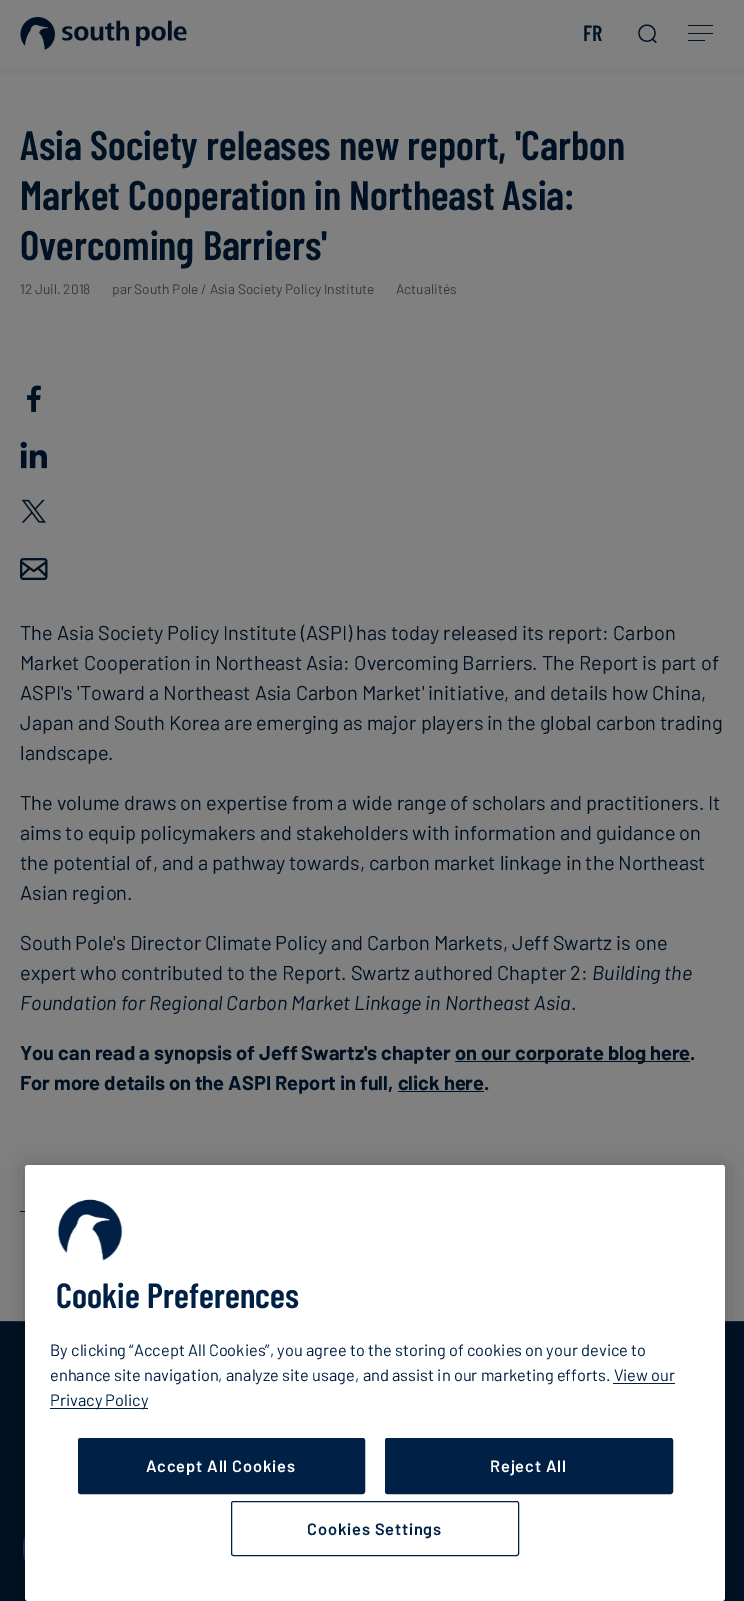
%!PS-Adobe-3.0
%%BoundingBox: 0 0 744 1601
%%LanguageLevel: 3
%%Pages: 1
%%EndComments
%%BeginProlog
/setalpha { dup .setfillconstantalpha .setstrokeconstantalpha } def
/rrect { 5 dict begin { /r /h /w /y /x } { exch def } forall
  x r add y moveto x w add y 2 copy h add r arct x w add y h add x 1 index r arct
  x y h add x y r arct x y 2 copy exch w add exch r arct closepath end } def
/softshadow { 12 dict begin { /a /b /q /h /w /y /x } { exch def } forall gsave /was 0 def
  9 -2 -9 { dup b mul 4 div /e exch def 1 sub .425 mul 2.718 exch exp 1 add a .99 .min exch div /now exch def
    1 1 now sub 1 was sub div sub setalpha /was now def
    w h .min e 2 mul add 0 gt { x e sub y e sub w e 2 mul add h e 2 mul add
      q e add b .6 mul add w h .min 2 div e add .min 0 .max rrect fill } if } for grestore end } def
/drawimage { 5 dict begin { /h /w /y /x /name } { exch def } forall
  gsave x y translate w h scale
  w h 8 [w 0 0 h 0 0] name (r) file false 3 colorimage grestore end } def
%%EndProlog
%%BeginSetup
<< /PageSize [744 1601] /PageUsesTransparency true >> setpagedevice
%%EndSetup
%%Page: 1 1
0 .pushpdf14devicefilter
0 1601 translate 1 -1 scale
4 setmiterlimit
0.502 setgray
0 0 744 1601 rectfill
0.482 0.486 0.49 setrgbcolor
0 66 744 1 rectfill
(images/1.raw) 20 17 167 33 drawimage
0 0.067 0.137 setrgbcolor
1.2 setlinewidth
1 setlinecap
newpath 652.5 39 moveto 656 42.5 lineto 655 33 moveto 655 44 639 44 639 33 curveto 639 22.5 655 22.5 655 33 curveto closepath stroke
688 25 25 1 rectfill
688 33 25 1 rectfill
688 40 17 1 rectfill
0 1322 744 279 rectfill
0 0.09 0.412 setrgbcolor
23 1519 60 60 28 rrect fill
0.25 setalpha
0.467 setgray
3 setlinewidth
0 setlinecap
24.5 1520.5 57 57 26.5 rrect stroke
1 setalpha
0.486 setgray
0 68 744 5 rectfill
(images/2.raw) 27 385 14 27 drawimage
(images/3.raw) 20 441 27 28 drawimage
(images/4.raw) 21 499 25 24 drawimage
(images/5.raw) 20 558 28 22 drawimage
0 0.067 0.137 setrgbcolor
455 1061 235 1 rectfill
398 1091 86 1 rectfill
20 1211 5 1 rectfill
0.09 0.145 0.2 setrgbcolor
0 1321 744 1 rectfill
0 setgray
25 1165 700 436 3 11 0.2 softshadow
1 setgray
25 1165 700 436 3 rrect fill
(images/6.raw) 57 1199 66 62 drawimage
0 0.129 0.271 setrgbcolor
613 1383 62 1 rectfill
50 1408 98 1 rectfill
78.5 1438.5 286 55 2 rrect gsave fill grestore
1 setlinewidth
stroke
385.5 1438.5 287 55 2 rrect gsave fill grestore
stroke
231.5 1501.5 287 54 2 rrect stroke
/BarlowCondensed-SemiBold [22 0 0 -22 0 0] selectfont
0 0.067 0.137 setrgbcolor
583 41 moveto (FR) show
/BarlowCondensed-SemiBold [41.25 0 0 -41.25 0 0] selectfont
20 160 moveto (Asia Society releases new report, 'Carbon) show
20 210 moveto (Market Cooperation in Northeast Asia:) show
20 260 moveto (Overcoming Barriers') show
/Barlow-Regular [13.75 0 0 -13.75 0 0] selectfont
0.22 setgray
20 294 moveto (12 Juil. 2018) show
112 294 moveto (par South Pole / Asia Society Policy Institute) show
396 294 moveto (Actualités) show
/Barlow-Regular [20 0 0 -20 0 0] selectfont
0 0.067 0.137 setrgbcolor
20 640 moveto (The Asia Society Policy Institute \(ASPI\) has today released its report: Carbon) show
20 670 moveto (Market Cooperation in Northeast Asia: Overcoming Barriers. The Report is part of) show
20 700 moveto (ASPI's 'Toward a Northeast Asia Carbon Market' initiative, and details how China,) show
20 730 moveto (Japan and South Korea are emerging as major players in the global carbon trading) show
20 760 moveto (landscape.) show
20 810 moveto (The volume draws on expertise from a wide range of scholars and practitioners. It) show
20 840 moveto (aims to equip policymakers and stakeholders with information and guidance on) show
20 870 moveto (the potential of, and a pathway towards, carbon market linkage in the Northeast) show
20 900 moveto (Asian region.) show
20 950 moveto (South Pole's Director Climate Policy and Carbon Markets, Jeff Swartz is one) show
20 980 moveto (expert who contributed to the Report. Swartz authored Chapter 2:) show
/Barlow-Italic [20 0 0 -20 0 0] selectfont
592 980 moveto (Building the) show
20 1010 moveto (Foundation for Regional Carbon Market Linkage in Northeast Asia) show
/Barlow-Regular [20 0 0 -20 0 0] selectfont
571 1010 moveto (.) show
/Barlow-Bold [20 0 0 -20 0 0] selectfont
20 1060 moveto (You can read a synopsis of Jeff Swartz's chapter) show
455 1060 moveto (on our corporate blog here.) show
20 1090 moveto (For more details on the ASPI Report in full, click here.) show
/BarlowCondensed-SemiBold [35 0 0 -35 0 0] selectfont
0 0.129 0.271 setrgbcolor
56 1308 moveto (Cookie Preferences) show
/Barlow-Regular [16.4 0 0 -16.4 0 0] selectfont
50 1356 moveto (By clicking “Accept All Cookies”, you agree to the storing of cookies on your device to) show
50 1381 moveto (enhance site navigation, analyze site usage, and assist in our marketing efforts. View our) show
50 1406 moveto (Privacy Policy) show
/Barlow-SemiBold [16.4 0 0 -16.4 0 0] selectfont
1 setgray
146 1472 moveto 0.8 0 (Accept All Cookies) ashow
490 1472 moveto 0.8 0 (Reject All) ashow
0 0.129 0.271 setrgbcolor
307 1535 moveto 0.8 0 (Cookies Settings) ashow
.poppdf14devicefilter showpage
%%EOF
